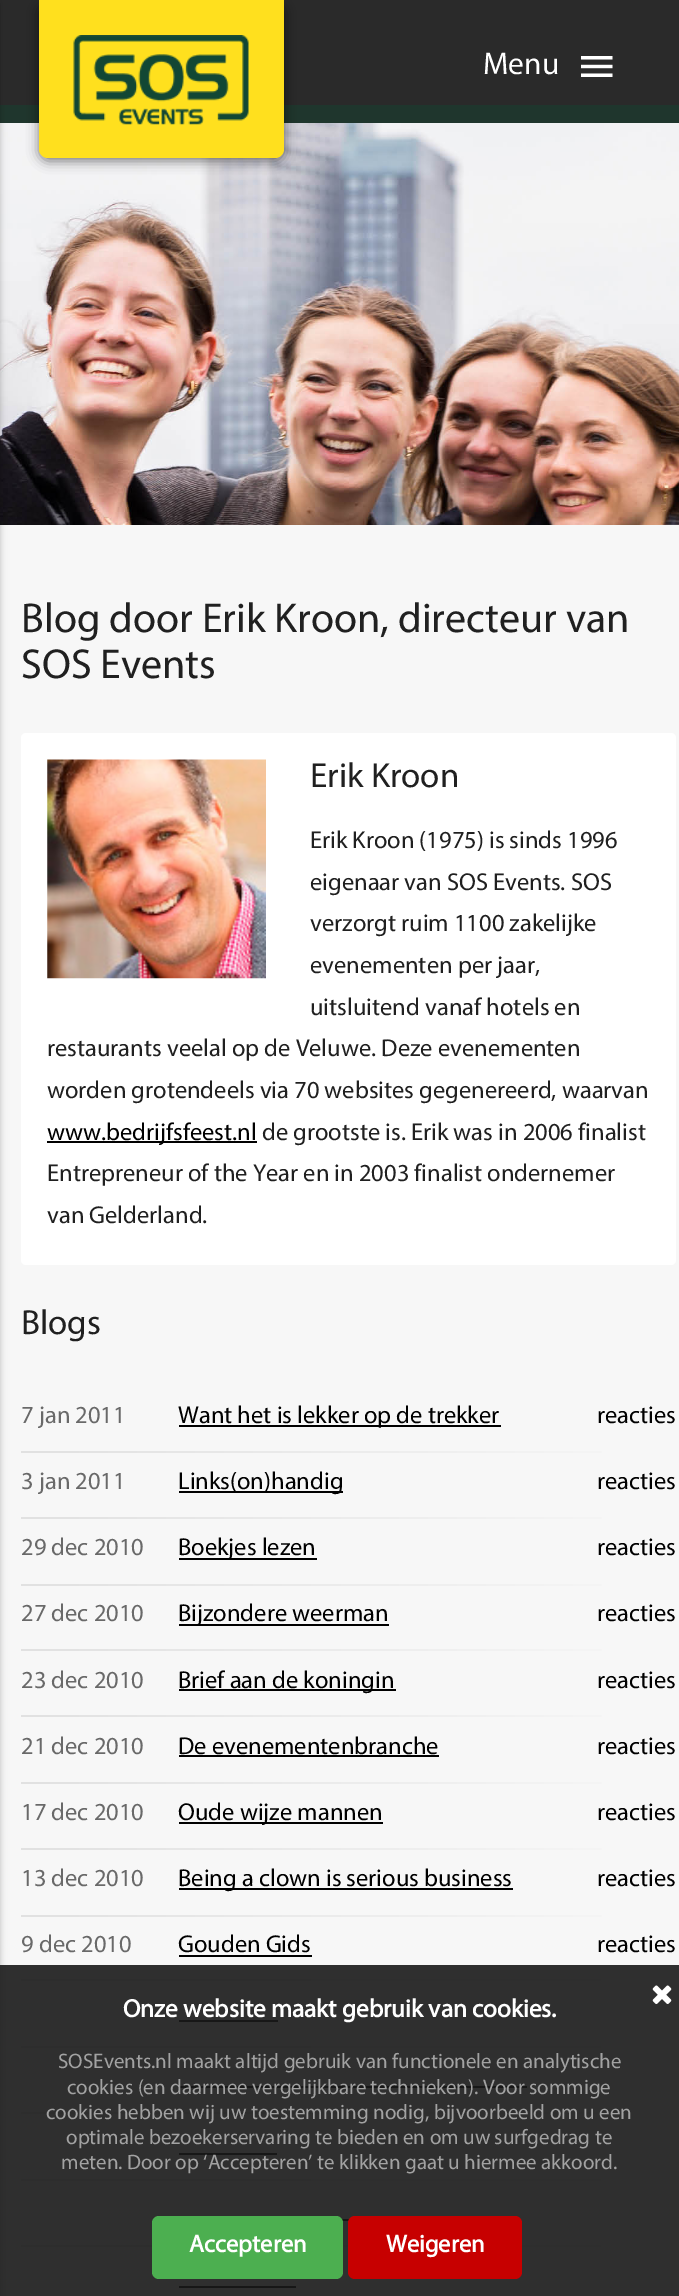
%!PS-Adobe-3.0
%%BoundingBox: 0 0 679 2296
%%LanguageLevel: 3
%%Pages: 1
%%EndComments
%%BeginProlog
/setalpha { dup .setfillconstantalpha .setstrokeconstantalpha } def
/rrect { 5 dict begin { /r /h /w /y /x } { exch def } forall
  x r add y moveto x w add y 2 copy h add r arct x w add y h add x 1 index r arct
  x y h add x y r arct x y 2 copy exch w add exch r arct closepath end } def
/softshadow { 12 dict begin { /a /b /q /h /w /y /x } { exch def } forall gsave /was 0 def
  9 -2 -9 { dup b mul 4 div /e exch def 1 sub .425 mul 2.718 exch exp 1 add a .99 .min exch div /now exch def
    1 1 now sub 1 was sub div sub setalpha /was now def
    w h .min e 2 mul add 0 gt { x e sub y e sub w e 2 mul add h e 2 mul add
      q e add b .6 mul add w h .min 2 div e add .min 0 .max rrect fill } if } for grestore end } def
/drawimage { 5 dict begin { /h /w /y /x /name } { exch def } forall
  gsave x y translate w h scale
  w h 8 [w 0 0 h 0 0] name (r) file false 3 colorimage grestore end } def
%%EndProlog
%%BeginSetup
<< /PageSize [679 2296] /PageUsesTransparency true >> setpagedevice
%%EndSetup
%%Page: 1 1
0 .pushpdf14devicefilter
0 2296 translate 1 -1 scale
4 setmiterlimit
0.969 setgray
0 0 679 2296 rectfill
0.165 setgray
0 0 679 105 rectfill
0.122 0.212 0.176 setrgbcolor
0 105 679 18 rectfill
(images/3.raw) 0 123 679 402 drawimage
0 setgray
-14 2 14 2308 0 4.5 0.12 softshadow
-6 4 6 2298 0 2 0.14 softshadow
39 4 245 157 9 6 0.5 softshadow
1 0.878 0.118 setrgbcolor
newpath 39 0 moveto 284 0 lineto 284 149 lineto 284 154 280 158 275 158 curveto 48 158 lineto 43 158 39 154 39 149 curveto closepath fill
(images/1.raw) 73 35 176 90 drawimage
(images/2.raw) 581 56 32 21 drawimage
1 setgray
21 733 655 532 5 rrect fill
(images/4.raw) 47 759 219 220 drawimage
0 setgray
47 1141 210 2 rectfill
179 1425 322 2 rectfill
gsave newpath 21 1451 moveto 602 1451 lineto 602 1453 lineto 21 1453 lineto closepath clip newpath
<< /ShadingType 2 /ColorSpace /DeviceRGB /Coords [21 1452 676 1452] /Extend [true true] /Function << /FunctionType 2 /Domain [0 1] /C0 [0.882 0.882 0.882] /C1 [0.969 0.969 0.969] /N 1 >> >> shfill grestore
179 1491 164 2 rectfill
gsave newpath 21 1517 moveto 602 1517 lineto 602 1519 lineto 21 1519 lineto closepath clip newpath
<< /ShadingType 2 /ColorSpace /DeviceRGB /Coords [21 1518 676 1518] /Extend [true true] /Function << /FunctionType 2 /Domain [0 1] /C0 [0.882 0.882 0.882] /C1 [0.969 0.969 0.969] /N 1 >> >> shfill grestore
179 1558 138 2 rectfill
gsave newpath 21 1584 moveto 602 1584 lineto 602 1586 lineto 21 1586 lineto closepath clip newpath
<< /ShadingType 2 /ColorSpace /DeviceRGB /Coords [21 1585 676 1585] /Extend [true true] /Function << /FunctionType 2 /Domain [0 1] /C0 [0.882 0.882 0.882] /C1 [0.969 0.969 0.969] /N 1 >> >> shfill grestore
179 1624 210 2 rectfill
gsave newpath 21 1649 moveto 602 1649 lineto 602 1651 lineto 21 1651 lineto closepath clip newpath
<< /ShadingType 2 /ColorSpace /DeviceRGB /Coords [21 1649 676 1649] /Extend [true true] /Function << /FunctionType 2 /Domain [0 1] /C0 [0.882 0.882 0.882] /C1 [0.969 0.969 0.969] /N 1 >> >> shfill grestore
179 1689 217 2 rectfill
gsave newpath 21 1715 moveto 602 1715 lineto 602 1717 lineto 21 1717 lineto closepath clip newpath
<< /ShadingType 2 /ColorSpace /DeviceRGB /Coords [21 1716 676 1716] /Extend [true true] /Function << /FunctionType 2 /Domain [0 1] /C0 [0.882 0.882 0.882] /C1 [0.969 0.969 0.969] /N 1 >> >> shfill grestore
179 1755 260 2 rectfill
gsave newpath 21 1782 moveto 602 1782 lineto 602 1784 lineto 21 1784 lineto closepath clip newpath
<< /ShadingType 2 /ColorSpace /DeviceRGB /Coords [21 1782 676 1782] /Extend [true true] /Function << /FunctionType 2 /Domain [0 1] /C0 [0.882 0.882 0.882] /C1 [0.969 0.969 0.969] /N 1 >> >> shfill grestore
179 1822 204 2 rectfill
gsave newpath 21 1848 moveto 602 1848 lineto 602 1850 lineto 21 1850 lineto closepath clip newpath
<< /ShadingType 2 /ColorSpace /DeviceRGB /Coords [21 1849 676 1849] /Extend [true true] /Function << /FunctionType 2 /Domain [0 1] /C0 [0.882 0.882 0.882] /C1 [0.969 0.969 0.969] /N 1 >> >> shfill grestore
179 1888 334 2 rectfill
gsave newpath 21 1915 moveto 602 1915 lineto 602 1917 lineto 21 1917 lineto closepath clip newpath
<< /ShadingType 2 /ColorSpace /DeviceRGB /Coords [21 1915 676 1915] /Extend [true true] /Function << /FunctionType 2 /Domain [0 1] /C0 [0.882 0.882 0.882] /C1 [0.969 0.969 0.969] /N 1 >> >> shfill grestore
179 1955 133 2 rectfill
gsave newpath 21 1979 moveto 602 1979 lineto 602 1981 lineto 21 1981 lineto closepath clip newpath
<< /ShadingType 2 /ColorSpace /DeviceRGB /Coords [21 1980 676 1980] /Extend [true true] /Function << /FunctionType 2 /Domain [0 1] /C0 [0.882 0.882 0.882] /C1 [0.969 0.969 0.969] /N 1 >> >> shfill grestore
179 2020 99 2 rectfill
gsave newpath 21 2046 moveto 602 2046 lineto 602 2048 lineto 21 2048 lineto closepath clip newpath
<< /ShadingType 2 /ColorSpace /DeviceRGB /Coords [21 2047 676 2047] /Extend [true true] /Function << /FunctionType 2 /Domain [0 1] /C0 [0.882 0.882 0.882] /C1 [0.969 0.969 0.969] /N 1 >> >> shfill grestore
179 2086 348 2 rectfill
gsave newpath 21 2112 moveto 602 2112 lineto 602 2114 lineto 21 2114 lineto closepath clip newpath
<< /ShadingType 2 /ColorSpace /DeviceRGB /Coords [21 2113 676 2113] /Extend [true true] /Function << /FunctionType 2 /Domain [0 1] /C0 [0.882 0.882 0.882] /C1 [0.969 0.969 0.969] /N 1 >> >> shfill grestore
179 2153 98 2 rectfill
gsave newpath 21 2179 moveto 602 2179 lineto 602 2181 lineto 21 2181 lineto closepath clip newpath
<< /ShadingType 2 /ColorSpace /DeviceRGB /Coords [21 2180 676 2180] /Extend [true true] /Function << /FunctionType 2 /Domain [0 1] /C0 [0.882 0.882 0.882] /C1 [0.969 0.969 0.969] /N 1 >> >> shfill grestore
341 2219 9 2 rectfill
gsave newpath 21 2245 moveto 602 2245 lineto 602 2247 lineto 21 2247 lineto closepath clip newpath
<< /ShadingType 2 /ColorSpace /DeviceRGB /Coords [21 2246 676 2246] /Extend [true true] /Function << /FunctionType 2 /Domain [0 1] /C0 [0.882 0.882 0.882] /C1 [0.969 0.969 0.969] /N 1 >> >> shfill grestore
179 2286 117 2 rectfill
0.9 setalpha
0.098 setgray
0 1965 679 331 rectfill
1 setalpha
(images/5.raw) 652 1985 20 19 drawimage
0.298 0.686 0.314 setrgbcolor
152 2216 191 63 7 rrect fill
0.78 0 0 setrgbcolor
348 2216 174 63 7 rrect fill
/Myriad-Regular [31.5 0 0 -31.5 0 0] selectfont
1 setgray
483 74 moveto (Menu) show
/Myriad-Regular [42 0 0 -42 0 0] selectfont
0.125 setgray
21 632 moveto (Blog door Erik Kroon, directeur van) show
21 678 moveto (SOS Events) show
/Myriad-Regular [35 0 0 -35 0 0] selectfont
310 787 moveto (Erik Kroon) show
/Myriad-Regular [24.5 0 0 -24.5 0 0] selectfont
310 848 moveto (Erik Kroon \(1975\) is sinds 1996) show
310 890 moveto (eigenaar van SOS Events. SOS) show
310 931 moveto (verzorgt ruim 1100 zakelijke) show
310 973 moveto (evenementen per jaar,) show
310 1015 moveto (uitsluitend vanaf hotels en) show
47 1056 moveto (restaurants veelal op de Veluwe. Deze evenementen) show
47 1098 moveto (worden grotendeels via 70 websites gegenereerd, waarvan) show
0 setgray
47 1140 moveto (www.bedrijfsfeest.nl) show
0.125 setgray
262 1140 moveto (de grootste is. Erik was in 2006 finalist) show
47 1181 moveto (Entrepreneur of the Year en in 2003 finalist ondernemer) show
47 1223 moveto (van Gelderland.) show
/Myriad-Regular [35 0 0 -35 0 0] selectfont
21 1334 moveto (Blogs) show
/Myriad-Regular [24.5 0 0 -24.5 0 0] selectfont
0.412 setgray
21 1423 moveto (7 jan 2011) show
0 setgray
178 1423 moveto (Want het is lekker op de trekker) show
597 1423 moveto (reacties) show
0.412 setgray
21 1489 moveto (3 jan 2011) show
0 setgray
178 1489 moveto (Links\(on\)handig) show
597 1489 moveto (reacties) show
0.412 setgray
21 1555 moveto (29 dec 2010) show
0 setgray
178 1555 moveto (Boekjes lezen) show
597 1555 moveto (reacties) show
0.412 setgray
21 1621 moveto (27 dec 2010) show
0 setgray
178 1621 moveto (Bijzondere weerman) show
597 1621 moveto (reacties) show
0.412 setgray
21 1688 moveto (23 dec 2010) show
0 setgray
178 1688 moveto (Brief aan de koningin) show
597 1688 moveto (reacties) show
0.412 setgray
21 1754 moveto (21 dec 2010) show
0 setgray
178 1754 moveto (De evenementenbranche) show
597 1754 moveto (reacties) show
0.412 setgray
21 1820 moveto (17 dec 2010) show
0 setgray
178 1820 moveto (Oude wijze mannen) show
597 1820 moveto (reacties) show
0.412 setgray
21 1886 moveto (13 dec 2010) show
0 setgray
178 1886 moveto (Being a clown is serious business) show
597 1886 moveto (reacties) show
0.412 setgray
21 1952 moveto (9 dec 2010) show
0 setgray
178 1952 moveto (Gouden Gids) show
597 1952 moveto (reacties) show
/Myriad-Bold [25.25 0 0 -25.25 0 0] selectfont
1 setgray
123 2017 moveto (Onze website maakt gebruik van cookies.) show
/Myriad-Regular [21 0 0 -21 0 0] selectfont
0.635 setgray
58 2068 moveto (SOSEvents.nl maakt altijd gebruik van functionele en analytische) show
67 2094 moveto (cookies \(en daarmee vergelijkbare technieken\). Voor sommige) show
46 2119 moveto (cookies hebben wij uw toestemming nodig, bijvoorbeeld om u een) show
66 2144 moveto (optimale bezoekerservaring te bieden en om uw surfgedrag te) show
61 2169 moveto (meten. Door op ‘Accepteren’ te klikken gaat u hiermee akkoord.) show
/Myriad-Bold [24.5 0 0 -24.5 0 0] selectfont
1 setgray
189 2252 moveto (Accepteren) show
386 2252 moveto (Weigeren) show
.poppdf14devicefilter showpage
%%EOF
